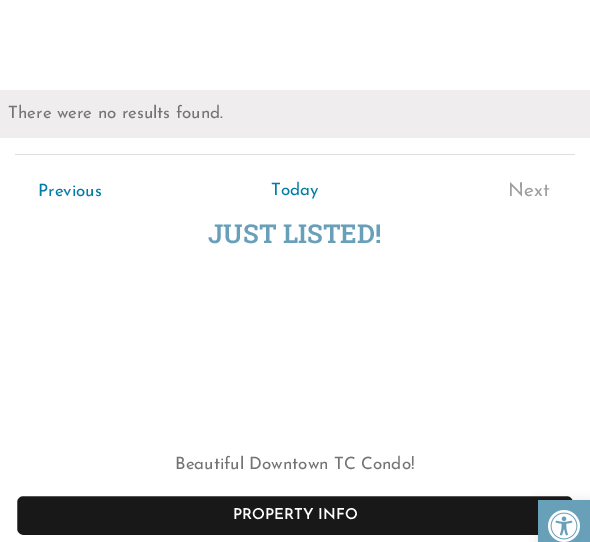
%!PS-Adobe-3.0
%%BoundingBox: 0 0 590 542
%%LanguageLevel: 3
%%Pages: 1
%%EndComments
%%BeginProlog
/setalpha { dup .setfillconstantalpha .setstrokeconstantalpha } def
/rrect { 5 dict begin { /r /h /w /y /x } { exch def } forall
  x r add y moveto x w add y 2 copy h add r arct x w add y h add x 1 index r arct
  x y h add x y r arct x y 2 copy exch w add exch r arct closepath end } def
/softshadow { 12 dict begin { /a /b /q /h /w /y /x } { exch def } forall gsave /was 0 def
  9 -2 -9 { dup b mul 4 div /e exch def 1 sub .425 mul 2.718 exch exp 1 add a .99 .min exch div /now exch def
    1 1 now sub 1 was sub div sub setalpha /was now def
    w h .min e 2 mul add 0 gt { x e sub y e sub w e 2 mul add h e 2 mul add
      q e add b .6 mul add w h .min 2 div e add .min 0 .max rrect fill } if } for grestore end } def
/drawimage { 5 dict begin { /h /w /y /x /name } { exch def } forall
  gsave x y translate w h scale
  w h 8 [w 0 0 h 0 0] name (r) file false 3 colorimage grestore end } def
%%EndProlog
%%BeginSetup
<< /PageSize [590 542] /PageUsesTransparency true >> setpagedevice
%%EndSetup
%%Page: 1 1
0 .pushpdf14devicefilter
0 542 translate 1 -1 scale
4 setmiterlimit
1 setgray
0 0 590 542 rectfill
0.937 0.929 0.929 setrgbcolor
0 90 590 48 rectfill
0.878 0.871 0.871 setrgbcolor
15 154 560 1 rectfill
0.094 setgray
16 495 558 41 7 rrect gsave fill grestore
1 setgray
2 setlinewidth
stroke
0 setgray
538 500 52 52 0 5 0.1 softshadow
0.412 0.627 0.725 setrgbcolor
538 500 52 42 rectfill
(images/1.raw) 548 510 32 32 drawimage
/JosefinSans-Regular [17 0 0 -17 0 0] selectfont
0.455 setgray
8 118 moveto (There were no results found.) show
0.004 0.486 0.647 setrgbcolor
38 196 moveto (Previous) show
271 195 moveto (Today) show
/JosefinSans-Regular [19 0 0 -19 0 0] selectfont
0.62 setgray
508 196 moveto (Next) show
/RobotoSlab-SemiBold [26 0 0 -26 0 0] selectfont
0.412 0.627 0.725 setrgbcolor
208 243 moveto (JUST LISTED!) show
/JosefinSans-Regular [17 0 0 -17 0 0] selectfont
0.455 setgray
175 469 moveto (Beautiful Downtown TC Condo!) show
/JosefinSans-SemiBold [15 0 0 -15 0 0] selectfont
1 setgray
233 519 moveto (PROPERTY INFO) show
.poppdf14devicefilter showpage
%%EOF
